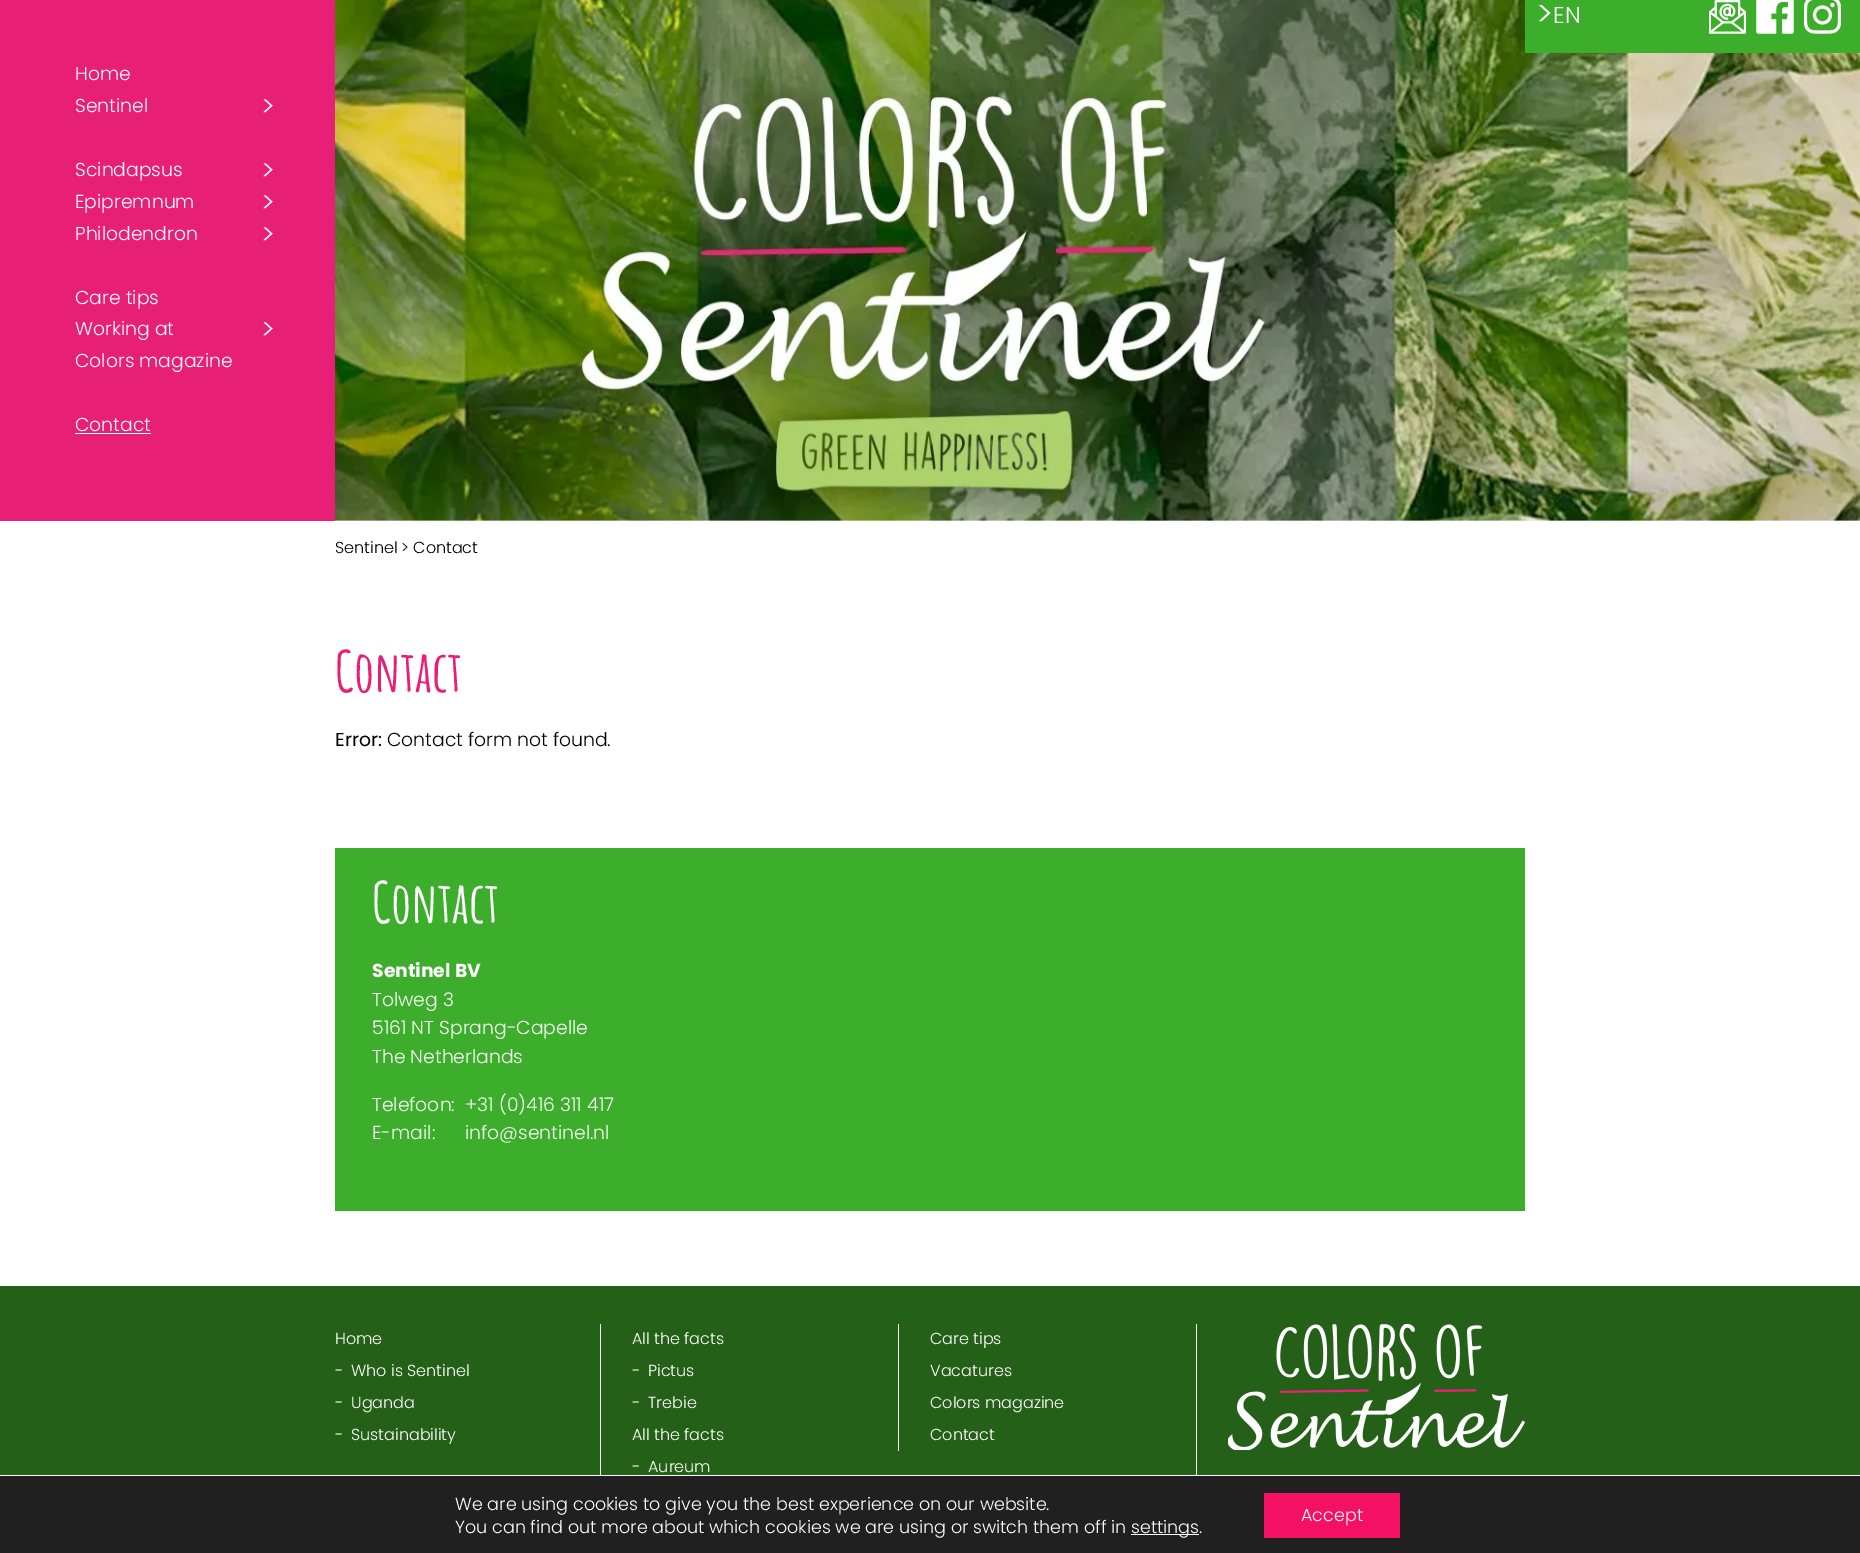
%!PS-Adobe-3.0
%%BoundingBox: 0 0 1860 1553
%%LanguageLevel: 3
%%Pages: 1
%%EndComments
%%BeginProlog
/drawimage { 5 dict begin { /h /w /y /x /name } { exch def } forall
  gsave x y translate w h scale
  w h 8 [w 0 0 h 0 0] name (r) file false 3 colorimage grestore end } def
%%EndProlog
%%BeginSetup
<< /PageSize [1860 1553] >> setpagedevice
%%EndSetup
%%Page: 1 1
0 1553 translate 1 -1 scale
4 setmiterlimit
1 setgray
0 0 1860 1553 rectfill
(images/1.raw) 335 0 1525 521 drawimage
0.239 0.682 0.169 setrgbcolor
1525 0 335 53 rectfill
(images/2.raw) 1709 0 37 34 drawimage
(images/3.raw) 1756 0 38 34 drawimage
(images/4.raw) 1804 0 37 34 drawimage
0.91 0.122 0.463 setrgbcolor
0 0 335 521 rectfill
1 setgray
75 433 76 1 rectfill
0.239 0.682 0.169 setrgbcolor
335 848 1190 363 rectfill
0.145 0.376 0.098 setrgbcolor
0 1286 1860 189 rectfill
1 setgray
600 1324 1 151 rectfill
898 1324 1 127 rectfill
1196 1324 1 151 rectfill
(images/5.raw) 1228 1324 297 126 drawimage
0.125 setgray
0 1476 1860 77 rectfill
1 setgray
1131 1534 68 1 rectfill
0.957 0.067 0.388 setrgbcolor
1264 1493 136 45 rectfill
/Poppins-Light [35 0 0 -35 0 0] selectfont
1 setgray
1536 26 moveto (>) show
/Poppins-Light [23 0 0 -23 0 0] selectfont
1553 23 moveto (EN) show
/Poppins-Light [18.75 0 0 -18.75 0 0] selectfont
75 80 moveto (Home) show
75 112 moveto (Sentinel) show
/Poppins-Light [28 0 0 -28 0 0] selectfont
261 116 moveto (>) show
/Poppins-Light [18.75 0 0 -18.75 0 0] selectfont
75 176 moveto (Scindapsus) show
/Poppins-Light [28 0 0 -28 0 0] selectfont
261 180 moveto (>) show
/Poppins-Light [18.75 0 0 -18.75 0 0] selectfont
75 208 moveto (Epipremnum) show
/Poppins-Light [28 0 0 -28 0 0] selectfont
261 212 moveto (>) show
/Poppins-Light [18.75 0 0 -18.75 0 0] selectfont
75 240 moveto (Philodendron) show
/Poppins-Light [28 0 0 -28 0 0] selectfont
261 244 moveto (>) show
/Poppins-Light [18.75 0 0 -18.75 0 0] selectfont
75 304 moveto (Care tips) show
75 335 moveto (Working at) show
/Poppins-Light [28 0 0 -28 0 0] selectfont
261 339 moveto (>) show
/Poppins-Light [18.75 0 0 -18.75 0 0] selectfont
75 367 moveto (Colors magazine) show
75 431 moveto (Contact) show
/Poppins-Light [16 0 0 -16 0 0] selectfont
0 setgray
335 553 moveto (Sentinel) show
401 553 moveto (> Contact) show
/AmaticSC-Bold [56 0 0 -56 0 0] selectfont
0.91 0.122 0.463 setrgbcolor
335 692 moveto (Contact) show
/Poppins-Regular [18.75 0 0 -18.75 0 0] selectfont
0 setgray
335 746 moveto (Error:) show
/Poppins-Light [18.75 0 0 -18.75 0 0] selectfont
387 746 moveto (Contact form not found.) show
/AmaticSC-Bold [56 0 0 -56 0 0] selectfont
1 setgray
372 923 moveto (Contact) show
/Poppins-Bold [18.75 0 0 -18.75 0 0] selectfont
372 977 moveto (Sentinel BV) show
/Poppins-Light [18.75 0 0 -18.75 0 0] selectfont
372 1006 moveto (Tolweg 3) show
372 1034 moveto (5161 NT Sprang-Capelle) show
372 1063 moveto (The Netherlands) show
372 1111 moveto (Telefoon:) show
465 1111 moveto (+31 \(0\)416 311 417) show
372 1139 moveto (E-mail:) show
465 1139 moveto (info@sentinel.nl) show
/Poppins-Light [16 0 0 -16 0 0] selectfont
335 1344 moveto (Home) show
335 1376 moveto (-) show
351 1376 moveto (Who is Sentinel) show
335 1408 moveto (-) show
351 1408 moveto (Uganda) show
335 1440 moveto (-) show
351 1440 moveto (Sustainability) show
632 1344 moveto (All the facts) show
632 1376 moveto (-) show
648 1376 moveto (Pictus) show
632 1408 moveto (-) show
648 1408 moveto (Trebie) show
632 1440 moveto (All the facts) show
632 1472 moveto (-) show
648 1472 moveto (Aureum) show
930 1344 moveto (Care tips) show
930 1376 moveto (Vacatures) show
930 1408 moveto (Colors magazine) show
930 1440 moveto (Contact) show
/Poppins-Light [17.5 0 0 -17.5 0 0] selectfont
455 1510 moveto (We are using cookies to give you the best experience on our website.) show
455 1533 moveto (You can find out more about which cookies we are using or switch them off in) show
1131 1533 moveto (settings) show
1199 1533 moveto (.) show
1301 1521 moveto (Accept) show
showpage
%%EOF
